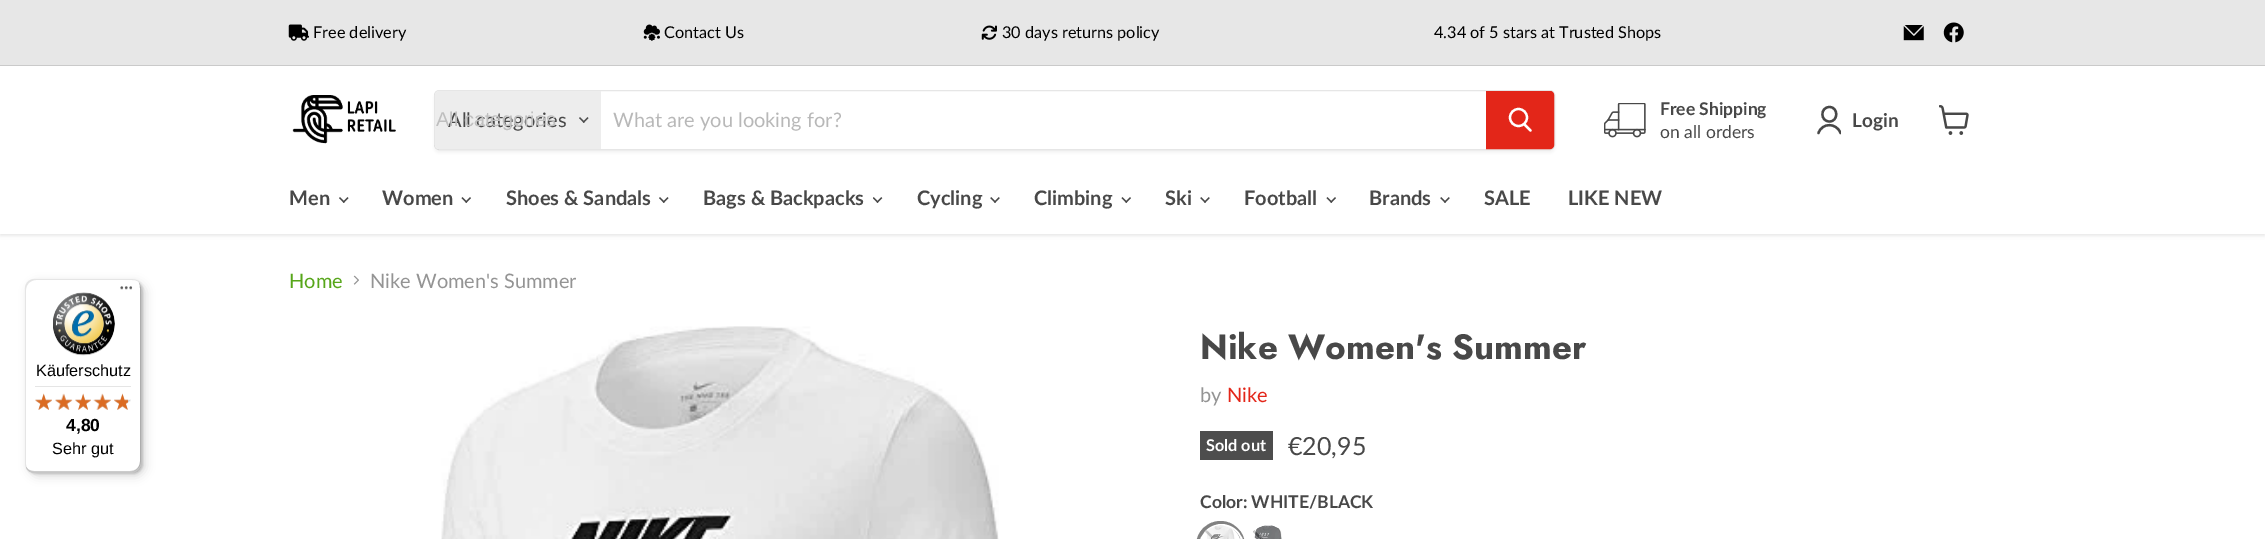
%!PS-Adobe-3.0
%%BoundingBox: 0 0 2265 539
%%LanguageLevel: 3
%%Pages: 1
%%EndComments
%%BeginProlog
/setalpha { dup .setfillconstantalpha .setstrokeconstantalpha } def
/rrect { 5 dict begin { /r /h /w /y /x } { exch def } forall
  x r add y moveto x w add y 2 copy h add r arct x w add y h add x 1 index r arct
  x y h add x y r arct x y 2 copy exch w add exch r arct closepath end } def
/softshadow { 12 dict begin { /a /b /q /h /w /y /x } { exch def } forall gsave /was 0 def
  9 -2 -9 { dup b mul 4 div /e exch def 1 sub .425 mul 2.718 exch exp 1 add a .99 .min exch div /now exch def
    1 1 now sub 1 was sub div sub setalpha /was now def
    w h .min e 2 mul add 0 gt { x e sub y e sub w e 2 mul add h e 2 mul add
      q e add b .6 mul add w h .min 2 div e add .min 0 .max rrect fill } if } for grestore end } def
/drawimage { 5 dict begin { /h /w /y /x /name } { exch def } forall
  gsave x y translate w h scale
  w h 8 [w 0 0 h 0 0] name (r) file false 3 colorimage grestore end } def
%%EndProlog
%%BeginSetup
<< /PageSize [2265 539] /PageUsesTransparency true >> setpagedevice
%%EndSetup
%%Page: 1 1
0 .pushpdf14devicefilter
0 539 translate 1 -1 scale
4 setmiterlimit
1 setgray
0 0 2265 539 rectfill
0.502 setgray
0 68 2265 167 0 2.5 0.25 softshadow
0.906 setgray
0 0 2265 65 rectfill
0.792 setgray
0 65 2265 1 rectfill
(images/1.raw) 288 24 21 17 drawimage
(images/2.raw) 643 24 17 17 drawimage
(images/3.raw) 981 25 16 15 drawimage
(images/4.raw) 1903 25 21 16 drawimage
(images/5.raw) 1943 22 21 21 drawimage
1 setgray
0 66 2265 168 rectfill
(images/6.raw) 292 95 104 49 drawimage
gsave
newpath 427 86 moveto 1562 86 lineto 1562 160 lineto 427 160 lineto closepath 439 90 moveto 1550 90 lineto 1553 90 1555 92 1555 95 curveto 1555 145 lineto 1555 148 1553 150 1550 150 curveto 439 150 lineto 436 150 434 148 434 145 curveto 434 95 lineto 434 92 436 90 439 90 curveto closepath eoclip newpath
0.502 setgray
434 93 1121 60 5 2 0.11 softshadow
grestore
0.2 setalpha
0.502 setgray
434.5 90.5 1120 59 4.5 rrect stroke
1 setalpha
0.929 setgray
newpath 439 91 moveto 601 91 lineto 601 149 lineto 439 149 lineto 437 149 435 147 435 145 curveto 435 95 lineto 435 93 437 91 439 91 curveto closepath fill
(images/7.raw) 579 117 10 6 drawimage
0.89 0.149 0.098 setrgbcolor
newpath 1486.5 91.5 moveto 1550 91.5 lineto 1552 91.5 1553.5 93 1553.5 95 curveto 1553.5 145 lineto 1553.5 147 1552 148.5 1550 148.5 curveto 1486.5 148.5 lineto closepath gsave fill grestore
stroke
1 setgray
2.2 setlinewidth
1 setlinecap
newpath 1530.5 130.5 moveto 1524.5 124.5 lineto stroke
0 setlinecap
newpath 1518.5 117.5 8.5 0 360 arc closepath stroke
(images/8.raw) 1604 103 42 35 drawimage
0.282 setgray
2.3 setlinewidth
1 setlinecap
1 setlinejoin
newpath 1829.5 121.5 moveto 1838.5 121.5 1838.5 107 1829.5 107 curveto 1820 107 1820 121.5 1829.5 121.5 curveto closepath stroke
gsave
1816 105 25 30 rectclip
newpath 1840.5 133 moveto 1836.5 122.5 1822 122.5 1818.5 133 curveto stroke
grestore
(images/9.raw) 1939 105 30 30 drawimage
(images/10.raw) 339 197 10 6 drawimage
(images/11.raw) 461 197 10 6 drawimage
(images/10.raw) 659 197 10 6 drawimage
(images/12.raw) 873 197 10 6 drawimage
(images/13.raw) 990 197 10 6 drawimage
(images/11.raw) 1121 197 10 6 drawimage
(images/13.raw) 1200 197 10 6 drawimage
(images/11.raw) 1326 197 10 6 drawimage
(images/13.raw) 1440 197 10 6 drawimage
0 setgray
29 283 116 193 10 5 0.15 softshadow
26 280 117 194 10 1 0.15 softshadow
1 setgray
25 279 116 194 10 rrect fill
0.1 setalpha
0 setgray
newpath 36 280 moveto 132 280 lineto 134 280 136 280 137 281 curveto 136 280 133 279 131 279 curveto 35 279 lineto 29 279 25 283 25 289 curveto 25 463 lineto 25 467 27 470 30 472 curveto 28 470 26 467 26 464 curveto 26 290 lineto 26 284 31 280 36 280 curveto closepath fill
0.2 setalpha
newpath 26 467 moveto 28 471 31 473 35 473 curveto 131 473 lineto 137 473 141 469 141 463 curveto 141 289 lineto 141 287 140 284 139 283 curveto 140 284 140 286 140 288 curveto 140 461 lineto 140 467 136 471 130 471 curveto 34 471 lineto 31 471 28 470 26 467 curveto closepath fill
0.196 setgray
newpath 26 468 moveto 28 471 31 473 35 473 curveto 131 473 lineto 137 473 141 469 141 463 curveto 141 289 lineto 141 287 140 284 139 283 curveto 140 284 140 286 140 288 curveto 140 462 lineto 140 467 136 472 130 472 curveto 34 472 lineto 31 472 28 470 26 468 curveto closepath fill
1 setalpha
(images/14.raw) 120 286 13 4 drawimage
0.3 setalpha
1 setgray
newpath 26 468 moveto 28 471 31 473 35 473 curveto 131 473 lineto 137 473 141 469 141 463 curveto 141 462 lineto 141 467 136 472 131 472 curveto 34 472 lineto 31 472 28 470 26 468 curveto closepath fill
1 setalpha
(images/15.raw) 53 292 62 64 drawimage
0.898 setgray
35 386 96 1 rectfill
(images/21.raw) 35 394 17 16 drawimage
(images/16.raw) 35 393 17 17 drawimage
(images/22.raw) 55 394 17 16 drawimage
(images/17.raw) 55 393 18 17 drawimage
(images/23.raw) 75 394 16 16 drawimage
(images/18.raw) 75 393 16 17 drawimage
(images/24.raw) 93 394 18 16 drawimage
(images/19.raw) 93 393 18 17 drawimage
(images/25.raw) 114 394 17 16 drawimage
(images/20.raw) 114 393 14 17 drawimage
(images/26.raw) 353 275 6 10 drawimage
(images/27.raw) 441 326 558 213 drawimage
0.302 setgray
1200 431 73 29 rectfill
0.506 setgray
4 setlinewidth
0 setlinecap
0 setlinejoin
1198 523 45 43 22.5 rrect stroke
1 setgray
2 setlinewidth
1200 525 43 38 21.5 rrect stroke
(images/29.raw) 1205 530 11 9 drawimage
(images/28.raw) 1205 525 35 14 drawimage
(images/31.raw) 1253 530 10 9 drawimage
(images/30.raw) 1253 525 29 14 drawimage
/Lato-Regular [16.25 0 0 -16.25 0 0] selectfont
0 setgray
313 38 moveto (Free delivery) show
664 38 moveto (Contact Us) show
1002 38 moveto (30 days returns policy) show
1434 38 moveto (4.34 of 5 stars at Trusted Shops) show
/Lato-Regular [20 0 0 -20 0 0] selectfont
0.282 setgray
448 127 moveto (All categories) show
/LiberationSans-Regular [20 0 0 -20 0 0] selectfont
0.749 setgray
436 126 moveto (All categories) show
/Lato-Regular [20 0 0 -20 0 0] selectfont
0.722 setgray
613 127 moveto (What are you looking for?) show
/Lato-Bold [17.5 0 0 -17.5 0 0] selectfont
0.282 setgray
1660 115 moveto (Free Shipping) show
/Lato-Regular [17.5 0 0 -17.5 0 0] selectfont
1660 138 moveto (on all orders) show
/Lato-Bold [19 0 0 -19 0 0] selectfont
1852 127 moveto (Login) show
/Lato-Bold [20 0 0 -20 0 0] selectfont
289 205 moveto (Men) show
382 205 moveto (Women) show
506 205 moveto (Shoes & Sandals) show
703 205 moveto (Bags & Backpacks) show
917 205 moveto (Cycling) show
1034 205 moveto (Climbing) show
1165 205 moveto (Ski) show
1244 205 moveto (Football) show
1369 205 moveto (Brands) show
1484 205 moveto (SALE) show
1568 205 moveto (LIKE NEW) show
/LiberationSans-Regular [16.25 0 0 -16.25 0 0] selectfont
0 setgray
36 376 moveto (Käuferschutz) show
/LiberationSans-Bold [17.5 0 0 -17.5 0 0] selectfont
66 431 moveto (4,80) show
/LiberationSans-Regular [16.25 0 0 -16.25 0 0] selectfont
52 454 moveto (Sehr gut) show
/Lato-Regular [20 0 0 -20 0 0] selectfont
0.341 0.651 0.102 setrgbcolor
289 288 moveto (Home) show
0.58 setgray
370 288 moveto (Nike Women's Summer) show
/Jost-Bold [35 0 0 -35 0 0] selectfont
0.282 setgray
1200 359 moveto (Nike Women's Summer) show
/Lato-Regular [20 0 0 -20 0 0] selectfont
0.58 setgray
1200 402 moveto (by) show
0.89 0.149 0.098 setrgbcolor
1227 402 moveto (Nike) show
/Lato-Bold [16.25 0 0 -16.25 0 0] selectfont
1 setgray
1206 451 moveto (Sold out) show
/Lato-Regular [25 0 0 -25 0 0] selectfont
0.282 setgray
1288 455 moveto (€20,95) show
/Lato-Bold [17.5 0 0 -17.5 0 0] selectfont
1200 508 moveto (Color: WHITE/BLACK) show
.poppdf14devicefilter showpage
%%EOF
